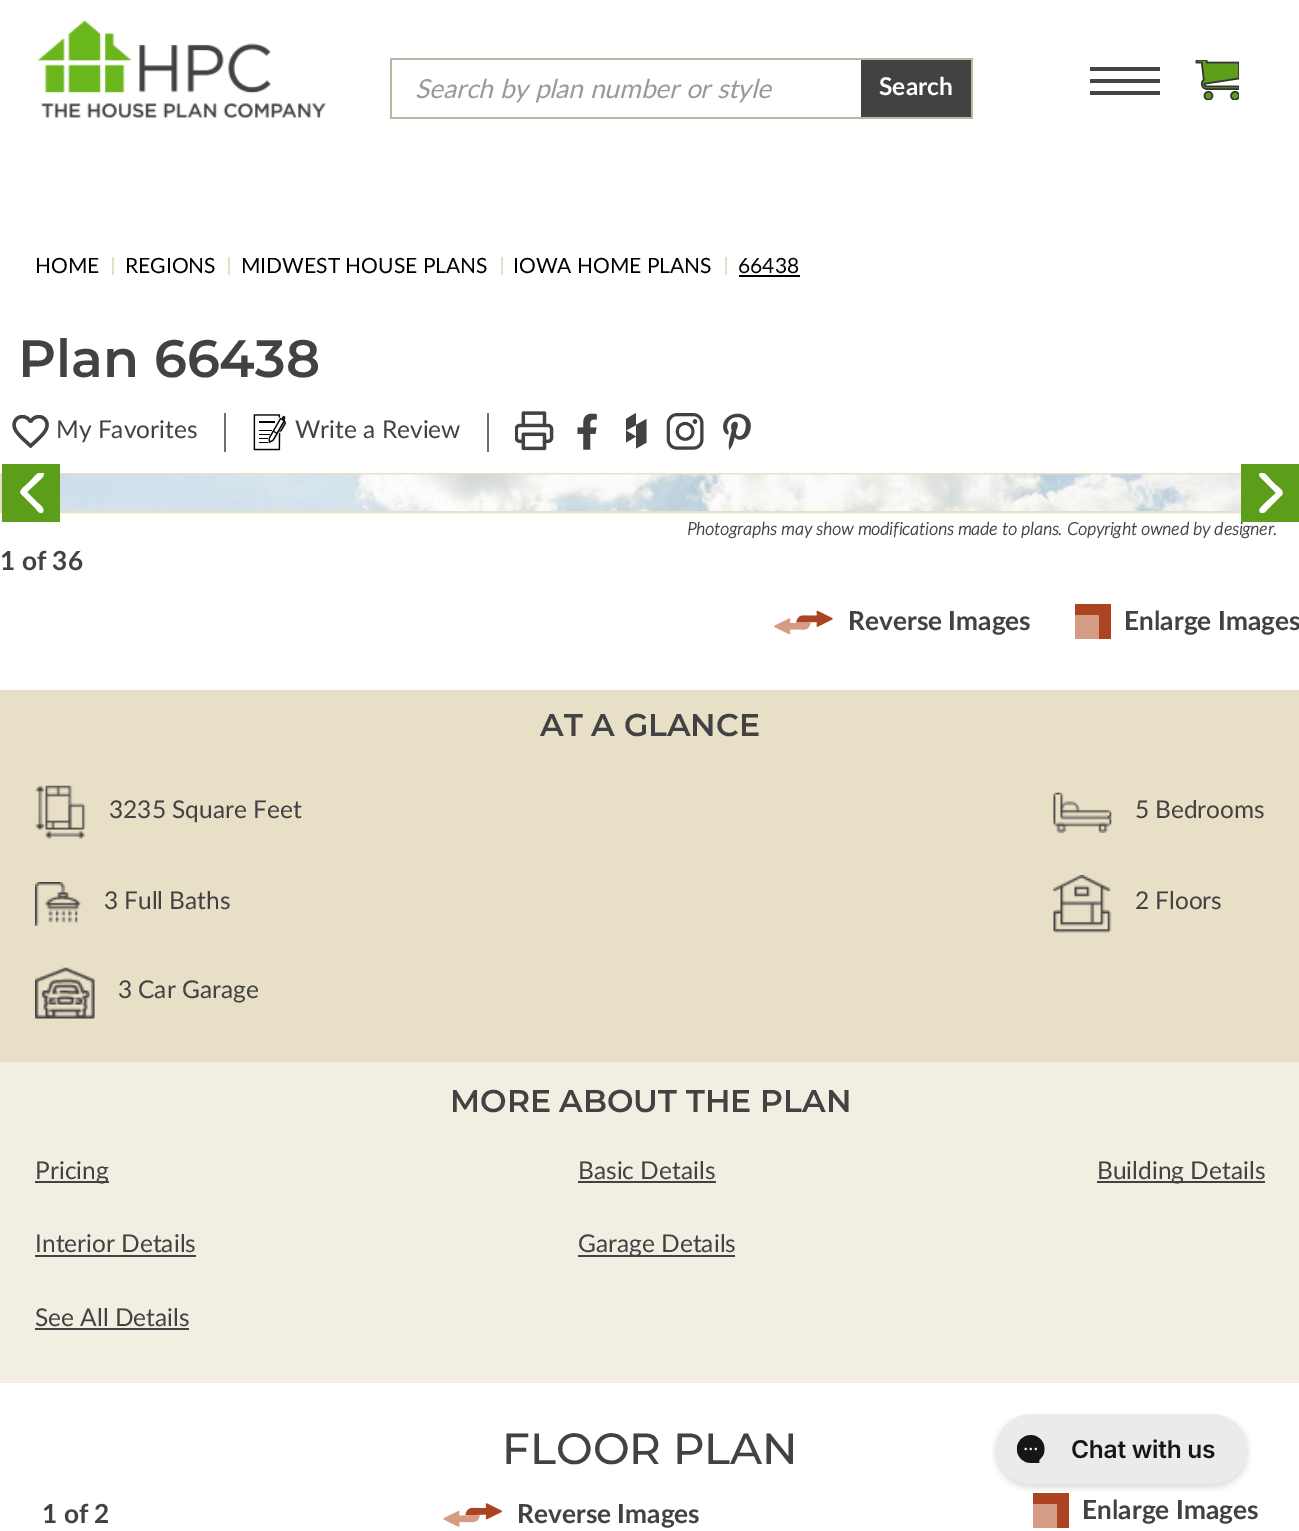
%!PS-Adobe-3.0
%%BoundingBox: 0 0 1299 1531
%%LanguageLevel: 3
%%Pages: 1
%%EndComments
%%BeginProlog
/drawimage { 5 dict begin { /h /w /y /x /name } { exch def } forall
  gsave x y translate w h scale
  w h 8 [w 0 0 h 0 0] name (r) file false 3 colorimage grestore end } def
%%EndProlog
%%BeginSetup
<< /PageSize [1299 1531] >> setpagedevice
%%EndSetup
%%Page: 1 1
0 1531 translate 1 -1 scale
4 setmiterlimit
1 setgray
0 0 1299 1531 rectfill
(images/1.raw) 37 20 289 99 drawimage
0.267 setgray
1090 79 70 4 rectfill
1090 67 70 4 rectfill
1090 91 70 4 rectfill
(images/2.raw) 1195 60 44 40 drawimage
0.737 0.714 0.643 setrgbcolor
390 58 583 2 rectfill
971 58 2 61 rectfill
390 117 583 2 rectfill
390 58 2 61 rectfill
0.259 setgray
861 60 110 57 rectfill
0.906 0.875 0.776 setrgbcolor
112 257 2 18 rectfill
228 257 2 18 rectfill
501 257 2 18 rectfill
725 257 2 18 rectfill
0 setgray
739 275 61 2 rectfill
(images/3.raw) 12 415 37 33 drawimage
0.439 setgray
224 413 2 39 rectfill
(images/4.raw) 253 414 34 37 drawimage
487 413 2 39 rectfill
(images/5.raw) 515 411 39 40 drawimage
(images/6.raw) 577 413 20 37 drawimage
0.259 setgray
newpath 646.5 430.5 moveto 646.5 442.5 lineto 636 448.5 lineto 636 436.5 lineto 626 442.5 lineto 626 419 lineto 636 413 lineto 636 425 lineto 626 430.5 lineto 636 436.5 lineto 636 425 lineto 646.5 419 lineto closepath fill
(images/7.raw) 666 413 38 37 drawimage
(images/8.raw) 723 413 28 37 drawimage
0.906 0.875 0.776 setrgbcolor
2 setlinewidth
1 474 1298 38 rectstroke
0.361 0.62 0.102 setrgbcolor
2 464 58 58 rectfill
gsave
19 473 25 40 rectclip
1 setgray
newpath 27 492 moveto 38 503 lineto 39 504 45 508 43 512 curveto 41 515 37 511 36 509 curveto 21 494 lineto 18 491 25 486 27 484 curveto 33 478 lineto 33 478 42 467 44 474 curveto 43 477 lineto closepath fill
grestore
(images/9.raw) 60 474 1181 37 drawimage
1241 464 58 58 rectfill
gsave
1258 473 25 40 rectclip
1 setgray
newpath 1276 493 moveto 1265 503 lineto 1264 505 1257 509 1260 512 curveto 1262 516 1266 511 1267 510 curveto 1282 495 lineto 1285 491 1278 487 1276 485 curveto 1270 479 lineto 1270 479 1261 467 1259 475 curveto 1260 477 lineto closepath fill
grestore
(images/10.raw) 774 611 59 23 drawimage
0.675 0.267 0.133 setrgbcolor
1075 604 36 35 rectfill
0.835 0.612 0.522 setrgbcolor
1075 615 24 24 rectfill
0.906 0.875 0.776 setrgbcolor
0 690 1299 372 rectfill
(images/11.raw) 35 785 51 54 drawimage
(images/12.raw) 1053 792 59 41 drawimage
(images/13.raw) 35 882 46 44 drawimage
(images/14.raw) 1053 875 59 58 drawimage
(images/15.raw) 35 967 60 52 drawimage
0.949 0.933 0.886 setrgbcolor
0 1062 1299 321 rectfill
0.259 setgray
35 1181 74 2 rectfill
578 1181 138 2 rectfill
1097 1181 168 2 rectfill
35 1255 161 2 rectfill
578 1255 157 2 rectfill
35 1328 154 2 rectfill
(images/16.raw) 443 1503 59 24 drawimage
0.675 0.267 0.133 setrgbcolor
1033 1493 36 35 rectfill
0.835 0.612 0.522 setrgbcolor
1033 1504 24 24 rectfill
(images/17.raw) 992 1414 259 77 drawimage
/Lato-Italic [26.25 0 0 -26.25 0 0] selectfont
0.6 setgray
415 98 moveto (Search by plan number or style) show
/Lato-Bold [24.5 0 0 -24.5 0 0] selectfont
1 setgray
879 95 moveto (Search) show
/Lato-Regular [21 0 0 -21 0 0] selectfont
0 setgray
35 273 moveto (HOME) show
125 273 moveto (REGIONS) show
241 273 moveto (MIDWEST HOUSE PLANS) show
513 273 moveto (IOWA HOME PLANS) show
738 273 moveto (66438) show
/Montserrat-SemiBold [52.5 0 0 -52.5 0 0] selectfont
0.259 setgray
18 377 moveto (Plan 66438) show
/Lato-Regular [24.5 0 0 -24.5 0 0] selectfont
56 438 moveto (My Favorites) show
295 438 moveto (Write a Review) show
/Lato-BoldItalic [17.5 0 0 -17.5 0 0] selectfont
687 535 moveto (Photographs may show modifications made to plans. Copyright owned by designer.) show
/Lato-Bold [26.25 0 0 -26.25 0 0] selectfont
0 570 moveto (1 of 36) show
848 630 moveto (Reverse Images) show
1124 630 moveto (Enlarge Images) show
/Montserrat-SemiBold [31.5 0 0 -31.5 0 0] selectfont
540 736 moveto (AT A GLANCE) show
/Lato-Regular [24.5 0 0 -24.5 0 0] selectfont
109 818 moveto (3235) show
172 818 moveto (Square Feet) show
1135 818 moveto (5) show
1155 818 moveto (Bedrooms) show
104 909 moveto (3) show
124 909 moveto (Full Baths) show
1135 909 moveto (2) show
1155 909 moveto (Floors) show
118 998 moveto (3) show
138 998 moveto (Car Garage) show
/Montserrat-SemiBold [31.5 0 0 -31.5 0 0] selectfont
450 1112 moveto (MORE ABOUT THE PLAN) show
/Lato-Regular [24.5 0 0 -24.5 0 0] selectfont
35 1179 moveto (Pricing) show
578 1179 moveto (Basic Details) show
1097 1179 moveto (Building Details) show
35 1252 moveto (Interior Details) show
578 1252 moveto (Garage Details) show
35 1326 moveto (See All Details) show
/Montserrat-Medium [43.75 0 0 -43.75 0 0] selectfont
502 1464 moveto (FLOOR PLAN) show
/Lato-Bold [26.25 0 0 -26.25 0 0] selectfont
42 1523 moveto (1 of 2) show
517 1523 moveto (Reverse Images) show
1082 1519 moveto (Enlarge Images) show
showpage
%%EOF
